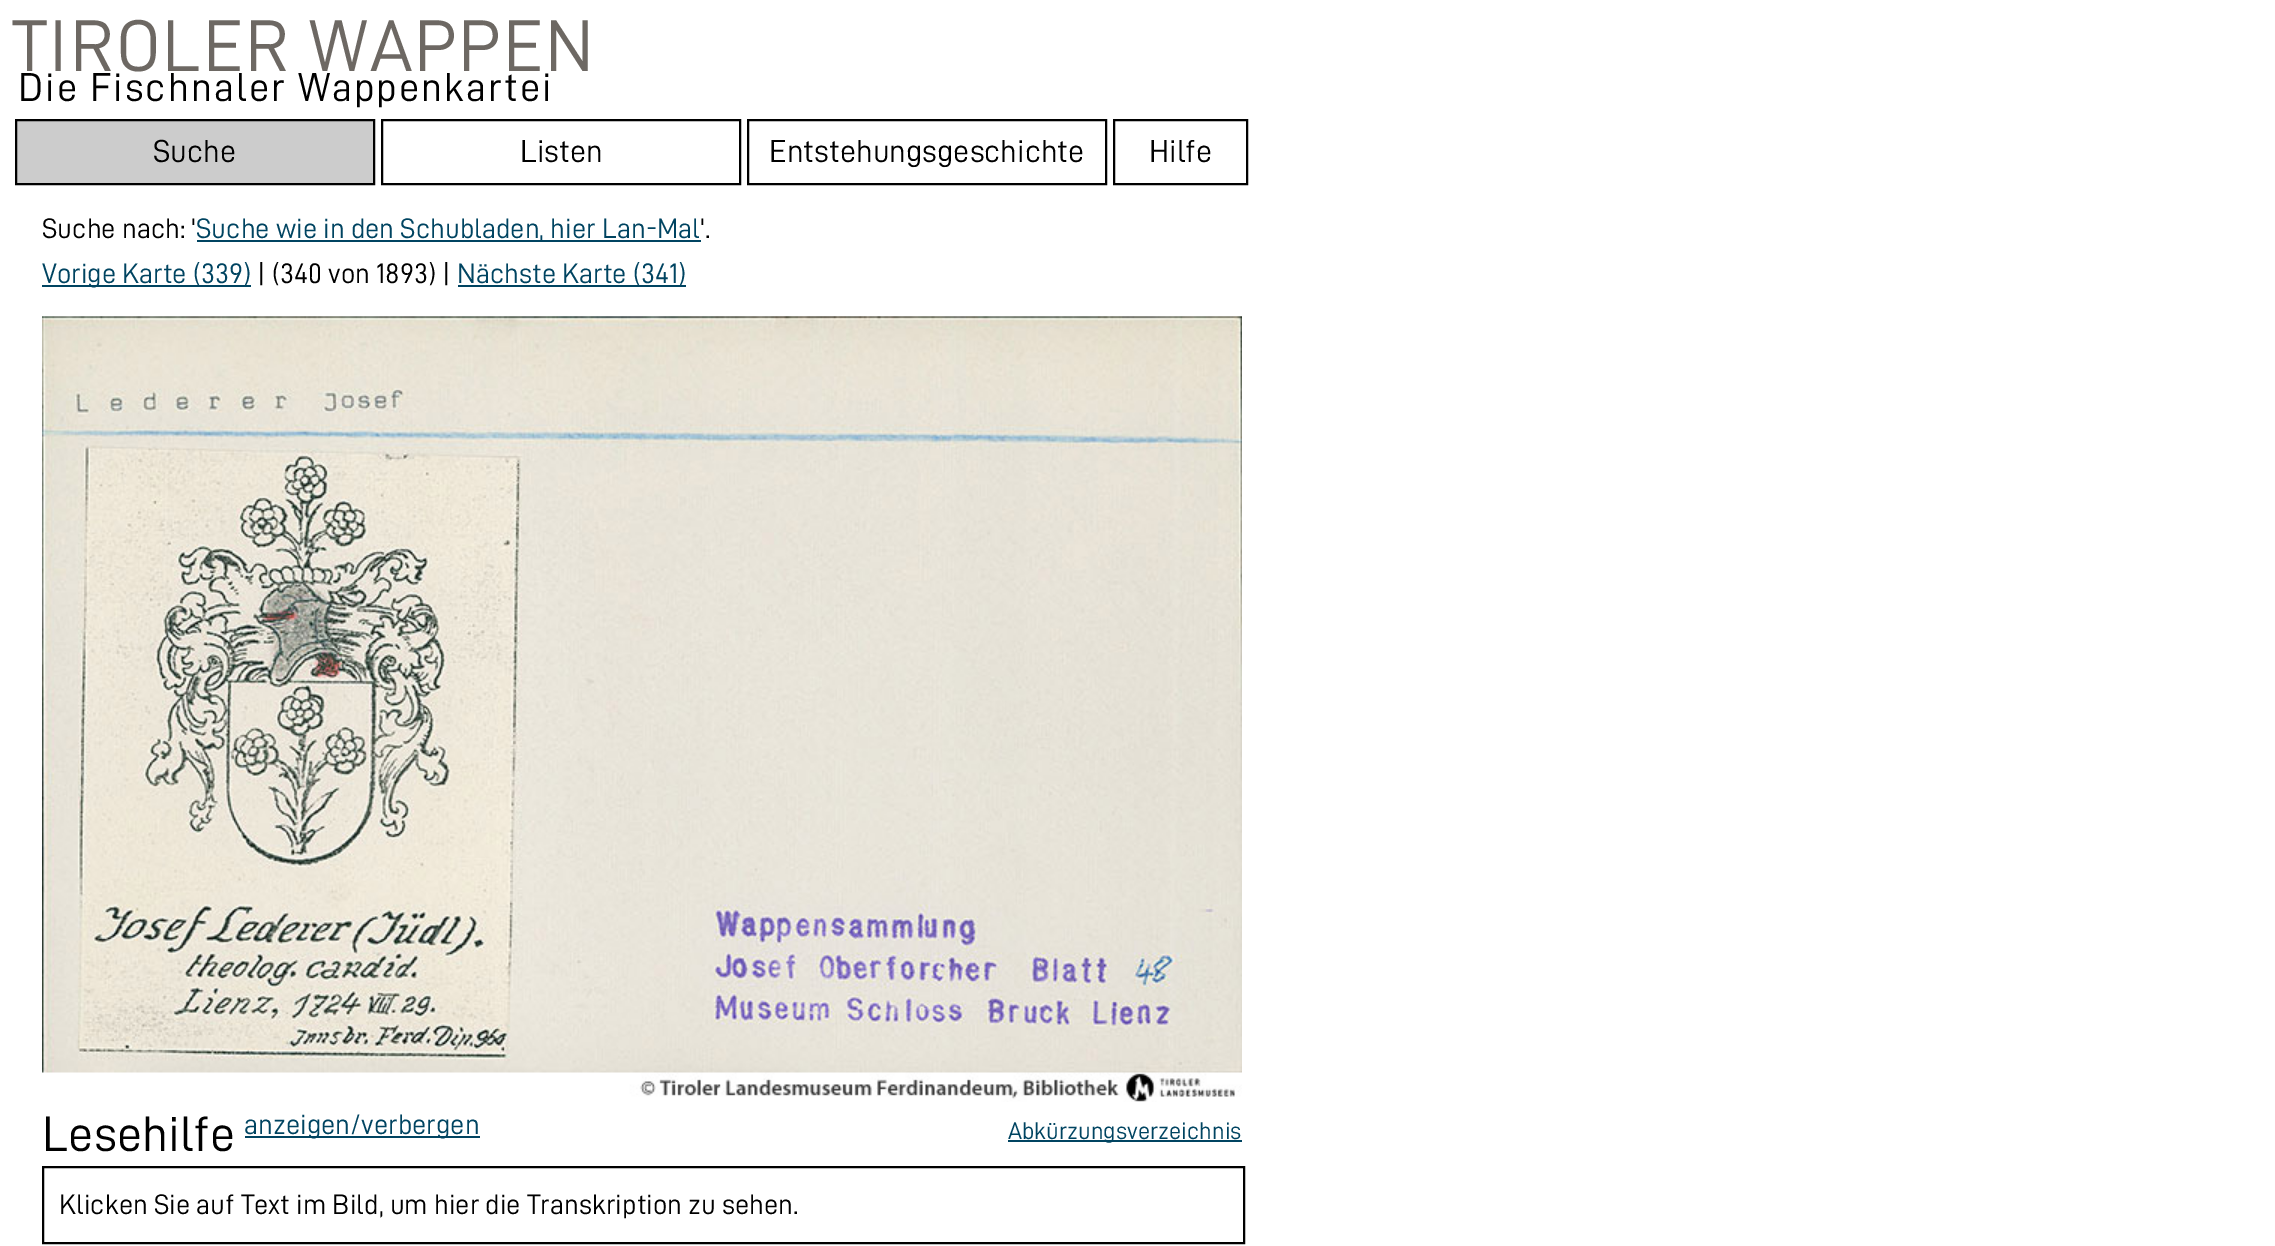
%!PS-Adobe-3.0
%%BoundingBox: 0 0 2275 1246
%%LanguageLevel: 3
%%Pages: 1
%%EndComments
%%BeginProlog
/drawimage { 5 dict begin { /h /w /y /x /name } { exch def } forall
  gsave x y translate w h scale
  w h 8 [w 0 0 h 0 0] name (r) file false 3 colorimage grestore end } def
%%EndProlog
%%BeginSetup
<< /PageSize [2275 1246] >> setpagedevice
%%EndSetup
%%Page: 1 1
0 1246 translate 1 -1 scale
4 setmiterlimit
1 setgray
0 0 2275 1246 rectfill
0.8 setgray
newpath 16 120 moveto 374 120 lineto 374 184 lineto 16 184 lineto closepath gsave fill grestore
0 setgray
2 setlinewidth
stroke
382 120 358 64 rectstroke
748 120 358 64 rectstroke
1114 120 133 64 rectstroke
0 0.267 0.38 setrgbcolor
197 240 504 2 rectfill
42 285 209 2 rectfill
458 285 228 2 rectfill
(images/1.raw) 42 316 1200 786 drawimage
(images/2.raw) 42 316 1200 1 drawimage
245 1136 235 2 rectfill
1008 1140 234 2 rectfill
0 setgray
43 1167 1201 76 rectstroke
/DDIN-Regular [73.5 0 0 -73.5 0 0] selectfont
0.427 0.408 0.388 setrgbcolor
12 71 moveto 1.95 0 (TIROLER WAPPEN) ashow
/DDIN-Regular [40.5 0 0 -40.5 0 0] selectfont
0 setgray
18 101 moveto 1.95 0 (Die Fischnaler Wappenkartei) ashow
/DDIN-Regular [32 0 0 -32 0 0] selectfont
153 162 moveto (Suche) show
520 162 moveto (Listen) show
769 162 moveto (Entstehungsgeschichte) show
1149 162 moveto (Hilfe) show
/DDIN-Regular [28.35 0 0 -28.35 0 0] selectfont
42 238 moveto (Suche nach: ') show
0 0.267 0.38 setrgbcolor
196 238 moveto (Suche wie in den Schubladen, hier Lan-Mal) show
0 setgray
700 238 moveto ('.) show
0 0.267 0.38 setrgbcolor
42 283 moveto (Vorige Karte \(339\)) show
0 setgray
257 283 moveto (| \(340 von 1893\) |) show
0 0.267 0.38 setrgbcolor
457 283 moveto (Nächste Karte \(341\)) show
/DDIN-Regular [50 0 0 -50 0 0] selectfont
0 setgray
42 1151 moveto (Lesehilfe) show
/DDIN-Regular [28.35 0 0 -28.35 0 0] selectfont
0 0.267 0.38 setrgbcolor
244 1134 moveto (anzeigen/verbergen) show
/DDIN-Regular [24.25 0 0 -24.25 0 0] selectfont
1008 1139 moveto (Abkürzungsverzeichnis) show
/DDIN-Regular [28.35 0 0 -28.35 0 0] selectfont
0 setgray
59 1214 moveto (Klicken Sie auf Text im Bild, um hier die Transkription zu sehen.) show
showpage
%%EOF
